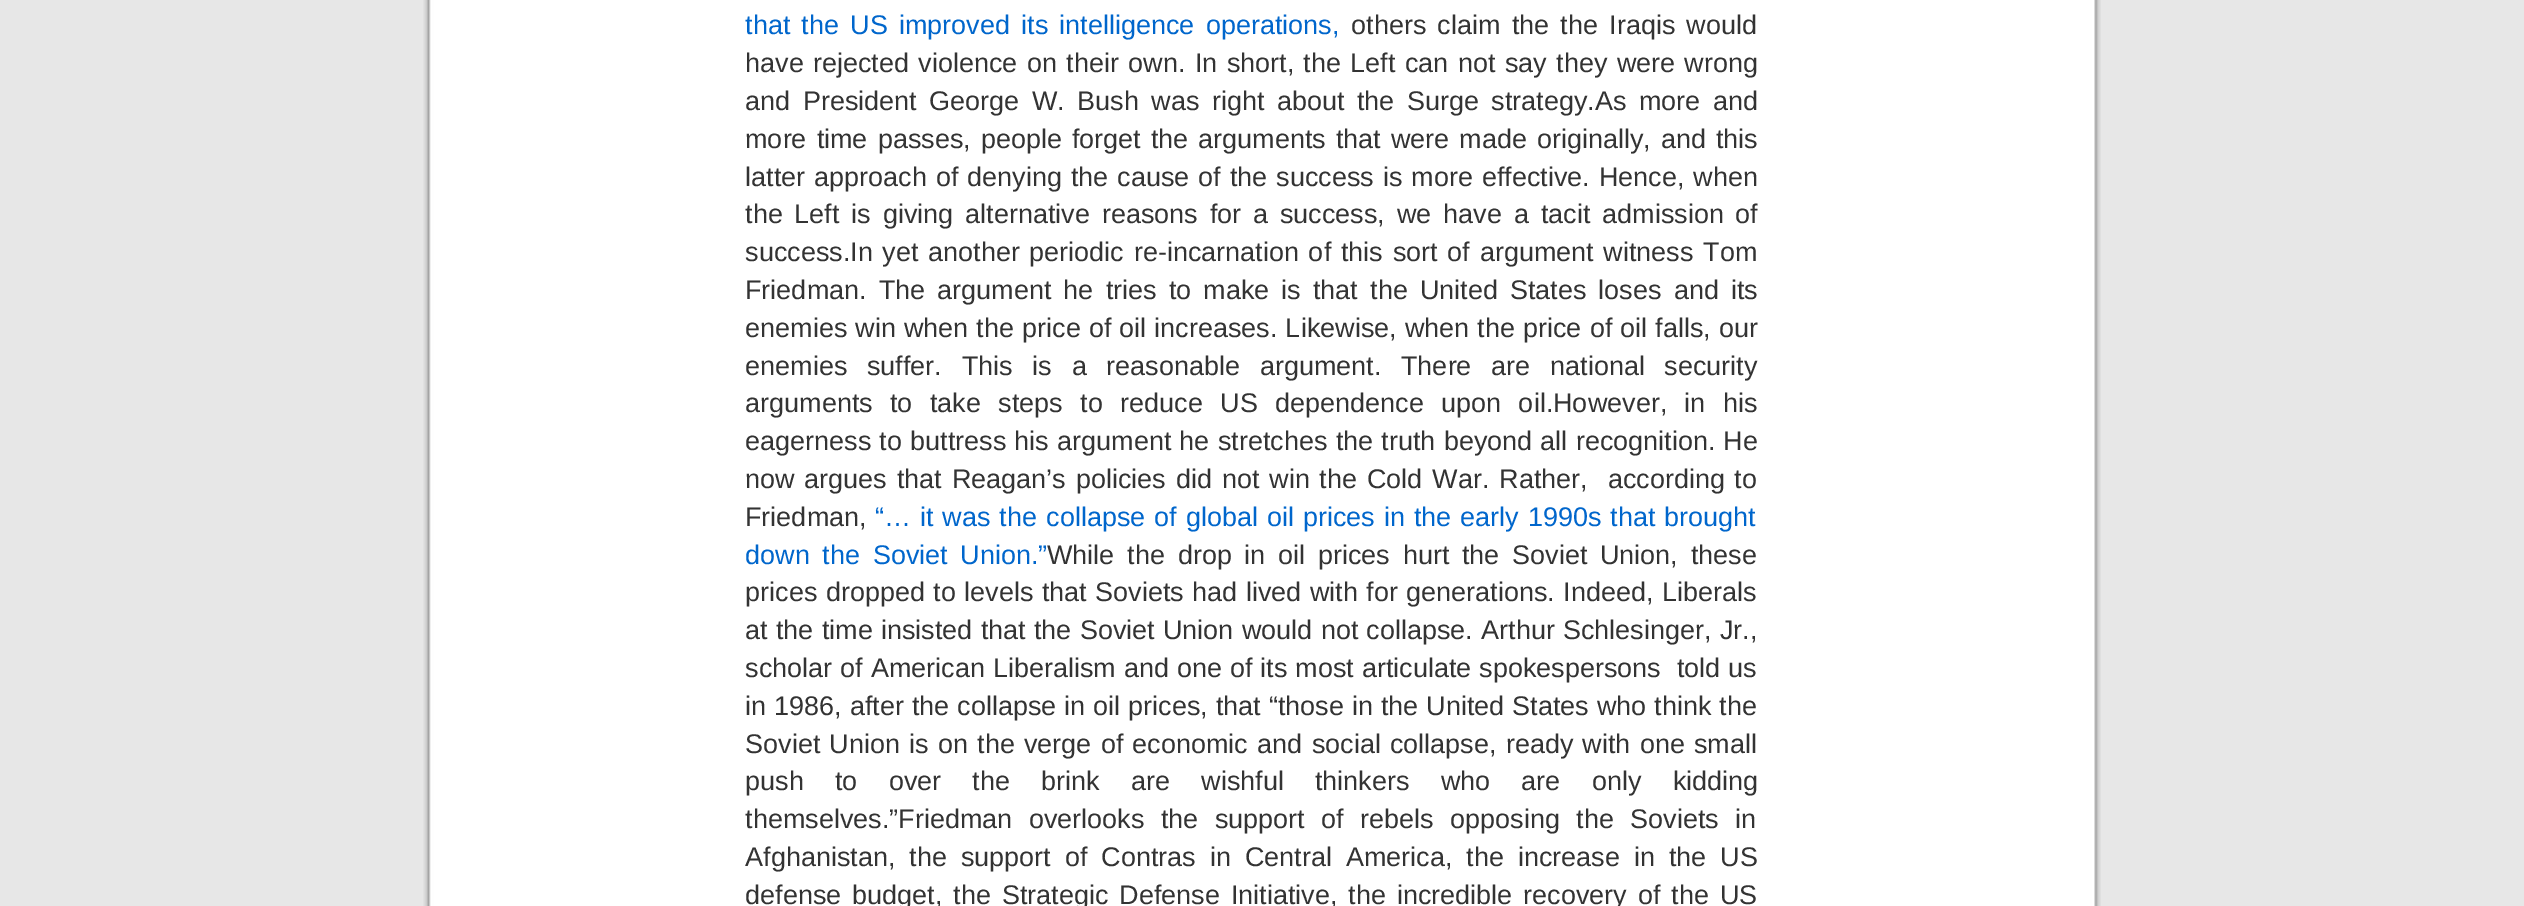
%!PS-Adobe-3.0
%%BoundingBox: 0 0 2524 906
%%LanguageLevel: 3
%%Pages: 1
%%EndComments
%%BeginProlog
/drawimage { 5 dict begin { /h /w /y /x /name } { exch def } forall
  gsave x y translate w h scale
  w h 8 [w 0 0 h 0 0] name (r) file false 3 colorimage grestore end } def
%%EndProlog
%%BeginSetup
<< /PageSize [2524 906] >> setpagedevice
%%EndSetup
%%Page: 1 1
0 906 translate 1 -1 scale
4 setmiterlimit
0.906 setgray
0 0 2524 906 rectfill
(images/1.raw) 423 0 1678 906 drawimage
/LiberationSans-Regular [27 0 0 -27 0 0] selectfont
0 0.4 0.8 setrgbcolor
745 34 moveto 3.75 0 32 (that the US improved its intelligence operations,) widthshow
0.2 setgray
1351 34 moveto 3.75 0 32 (others claim the the Iraqis would) widthshow
745 72 moveto 1.9 0 32 (have rejected violence on their own. In short, the Left can not say they were wrong) widthshow
745 110 moveto 5 0 32 (and President George W. Bush was right about the Surge strategy.As more and) widthshow
745 148 moveto 2.5 0 32 (more time passes, people forget the arguments that were made originally, and this) widthshow
745 186 moveto 1.5 0 32 (latter approach of denying the cause of the success is more effective. Hence, when) widthshow
745 223 moveto 4.4 0 32 (the Left is giving alternative reasons for a success, we have a tacit admission of) widthshow
745 261 moveto 2.25 0 32 (success.In yet another periodic re-incarnation of this sort of argument witness Tom) widthshow
745 299 moveto 4.6 0 32 (Friedman. The argument he tries to make is that the United States loses and its) widthshow
745 337 moveto 0.6 0 32 (enemies win when the price of oil increases. Likewise, when the price of oil falls, our) widthshow
745 375 moveto 12.25 0 32 (enemies suffer. This is a reasonable argument. There are national security) widthshow
745 412 moveto 9.9 0 32 (arguments to take steps to reduce US dependence upon oil.However, in his) widthshow
745 450 moveto 0.75 0 32 (eagerness to buttress his argument he stretches the truth beyond all recognition. He) widthshow
745 488 moveto 2.4 0 32 (now argues that Reagan’s policies did not win the Cold War. Rather,  according to) widthshow
745 526 moveto (Friedman,) show
0 0.4 0.8 setrgbcolor
875 526 moveto 1.5 0 32 (“… it was the collapse of global oil prices in the early 1990s that brought) widthshow
745 564 moveto 5.25 0 32 (down the Soviet Union.”) widthshow
0.2 setgray
1047 564 moveto 5.25 0 32 (While the drop in oil prices hurt the Soviet Union, these) widthshow
745 601 moveto 1 0 32 (prices dropped to levels that Soviets had lived with for generations. Indeed, Liberals) widthshow
745 639 moveto 0.75 0 32 (at the time insisted that the Soviet Union would not collapse. Arthur Schlesinger, Jr.,) widthshow
745 677 moveto 0.5 0 32 (scholar of American Liberalism and one of its most articulate spokespersons  told us) widthshow
745 715 moveto 0.5 0 32 (in 1986, after the collapse in oil prices, that “those in the United States who think the) widthshow
745 753 moveto 1.75 0 32 (Soviet Union is on the verge of economic and social collapse, ready with one small) widthshow
745 790 moveto 23.75 0 32 (push to over the brink are wishful thinkers who are only kidding) widthshow
745 828 moveto 9 0 32 (themselves.”Friedman overlooks the support of rebels opposing the Soviets in) widthshow
745 866 moveto 6.5 0 32 (Afghanistan, the support of Contras in Central America, the increase in the US) widthshow
745 904 moveto 3.5 0 32 (defense budget, the Strategic Defense Initiative, the incredible recovery of the US) widthshow
showpage
%%EOF
